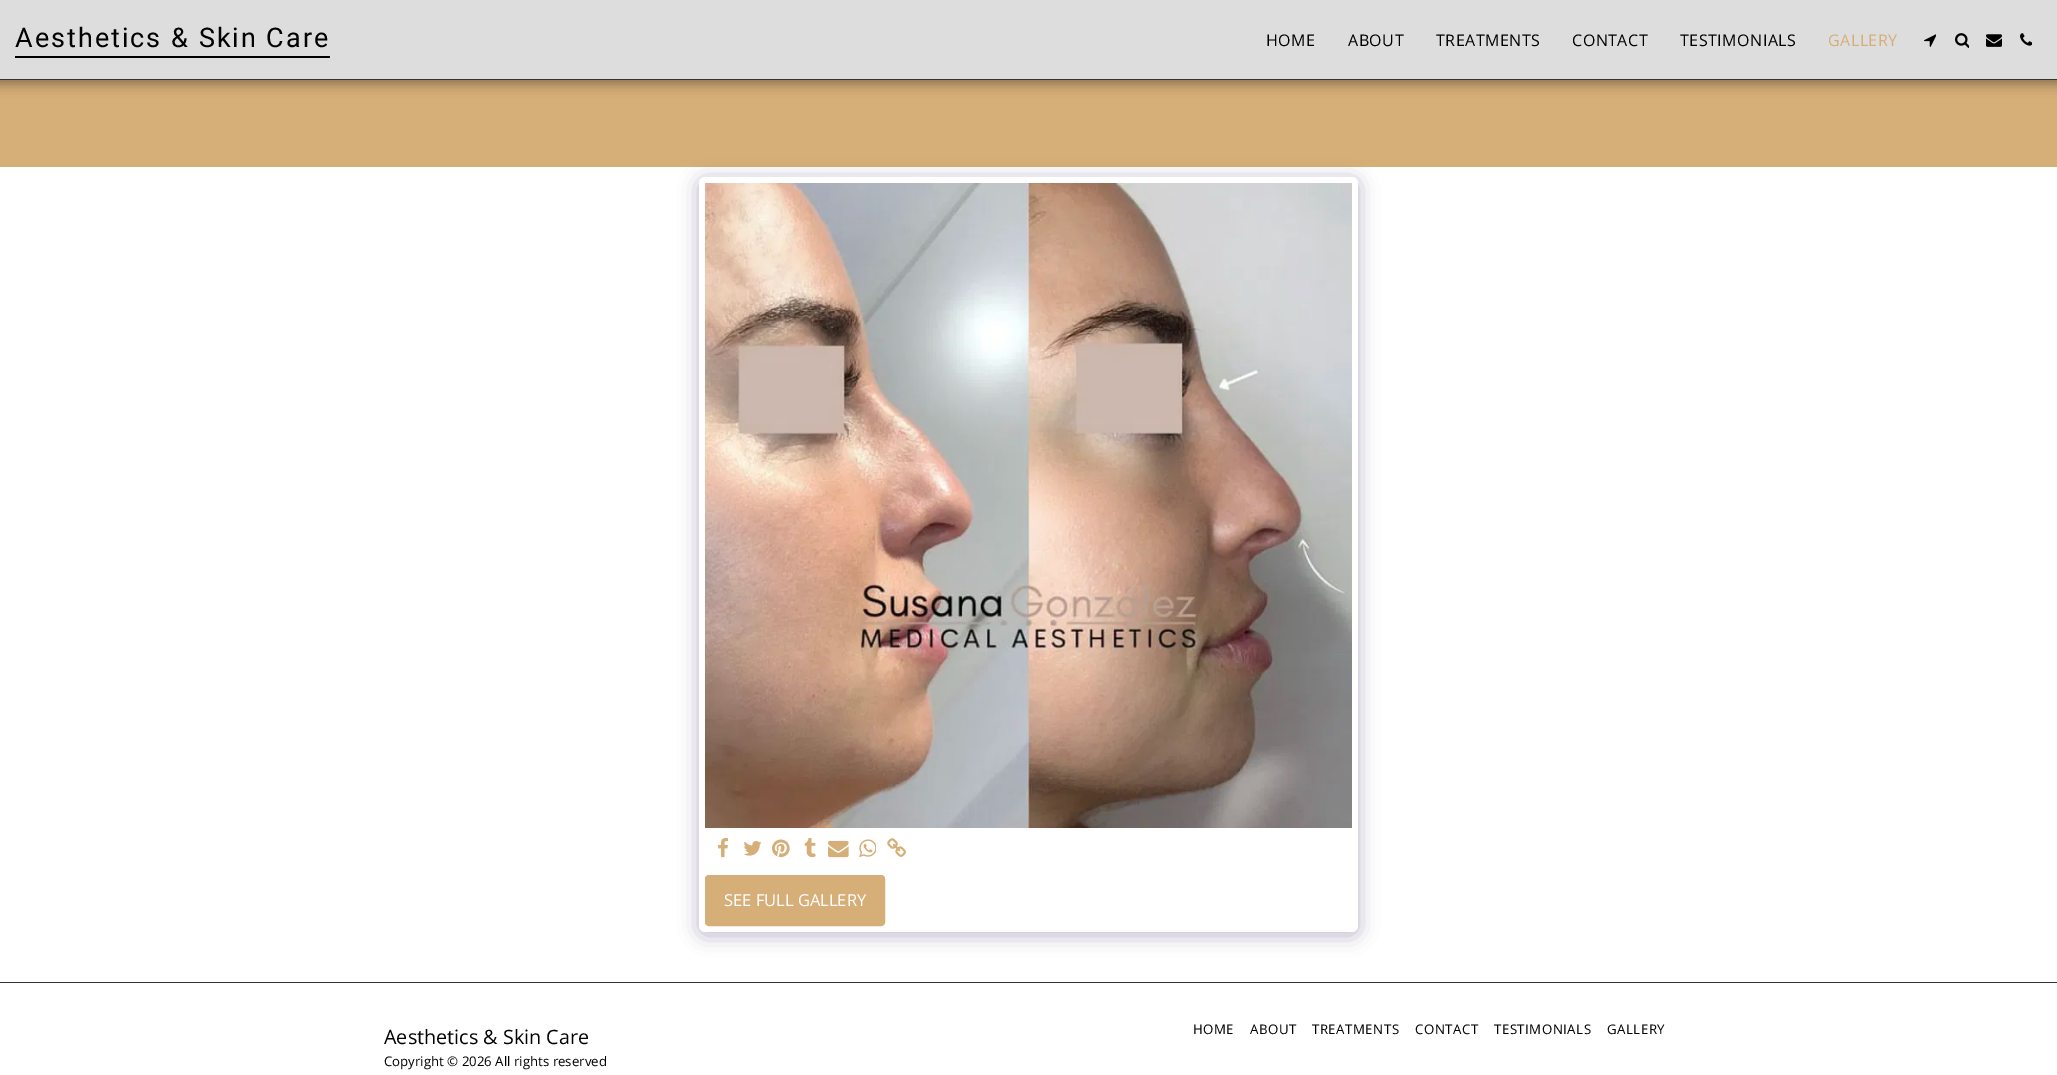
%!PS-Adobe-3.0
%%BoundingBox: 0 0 2057 1075
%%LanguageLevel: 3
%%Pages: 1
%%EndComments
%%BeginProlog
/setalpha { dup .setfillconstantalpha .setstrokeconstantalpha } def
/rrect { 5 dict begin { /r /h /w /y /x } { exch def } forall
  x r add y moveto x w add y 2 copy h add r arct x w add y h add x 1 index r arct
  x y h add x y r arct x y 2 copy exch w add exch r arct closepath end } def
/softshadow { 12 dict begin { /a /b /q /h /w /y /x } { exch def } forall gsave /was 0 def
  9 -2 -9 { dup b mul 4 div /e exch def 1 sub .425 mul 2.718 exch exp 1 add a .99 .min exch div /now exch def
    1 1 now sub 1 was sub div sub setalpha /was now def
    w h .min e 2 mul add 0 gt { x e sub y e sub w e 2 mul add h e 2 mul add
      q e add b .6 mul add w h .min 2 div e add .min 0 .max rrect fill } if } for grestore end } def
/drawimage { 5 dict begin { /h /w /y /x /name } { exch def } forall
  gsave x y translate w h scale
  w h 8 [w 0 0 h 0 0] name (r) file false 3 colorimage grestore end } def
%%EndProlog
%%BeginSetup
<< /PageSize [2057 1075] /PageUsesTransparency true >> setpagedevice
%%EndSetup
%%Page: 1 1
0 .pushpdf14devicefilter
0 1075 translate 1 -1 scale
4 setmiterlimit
1 setgray
0 0 2057 1075 rectfill
0.839 0.682 0.467 setrgbcolor
0 80 2057 87 rectfill
0 setgray
-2 0 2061 84 0 6 0.35 softshadow
0.867 setgray
0 0 2057 79 rectfill
0.2 setgray
0 79 2057 1 rectfill
0 setgray
15 56 315 2 rectfill
(images/1.raw) 1924 34 12 13 drawimage
(images/2.raw) 1955 33 14 15 drawimage
(images/3.raw) 1986 34 16 13 drawimage
(images/4.raw) 2020 33 12 13 drawimage
0.302 0.247 0.478 setrgbcolor
699 180 659 755 6 10 0.4 softshadow
1 setgray
699 177 659 755 6 rrect fill
(images/5.raw) 705 183 647 645 drawimage
(images/6.raw) 718 838 11 20 drawimage
(images/7.raw) 743 841 19 15 drawimage
(images/8.raw) 772 839 18 19 drawimage
(images/9.raw) 804 838 12 20 drawimage
(images/10.raw) 828 840 21 18 drawimage
(images/11.raw) 859 839 17 19 drawimage
(images/12.raw) 887 838 19 19 drawimage
0.839 0.682 0.467 setrgbcolor
705.5 875.5 179 50 3.5 rrect gsave fill grestore
stroke
0.2 setgray
0 982 2057 1 rectfill
/Roboto-Regular [27 0 0 -27 0 0] selectfont
0 setgray
15 47 moveto 2 0 (Aesthetics & Skin Care) ashow
/OpenSans-Regular [16 0 0 -16 0 0] selectfont
1266 46 moveto 0.5 0 (HOME) ashow
1348 46 moveto 0.5 0 (ABOUT) ashow
1436 46 moveto 0.5 0 (TREATMENTS) ashow
1572 46 moveto 0.5 0 (CONTACT) ashow
1680 46 moveto 0.5 0 (TESTIMONIALS) ashow
0.839 0.682 0.467 setrgbcolor
1828 46 moveto 0.5 0 (GALLERY) ashow
/OpenSans-Regular [16.5 0 0 -16.5 0 0] selectfont
1 setgray
724 906 moveto (SEE FULL GALLERY) show
/OpenSans-Regular [19.75 0 0 -19.75 0 0] selectfont
0 setgray
384 1044 moveto (Aesthetics & Skin Care) show
/OpenSans-Regular [13.25 0 0 -13.25 0 0] selectfont
384 1066 moveto (Copyright © 2026 All rights reserved) show
1193 1034 moveto 0.5 0 (HOME) ashow
1250 1034 moveto 0.5 0 (ABOUT) ashow
1312 1034 moveto 0.5 0 (TREATMENTS) ashow
1415 1034 moveto 0.5 0 (CONTACT) ashow
1494 1034 moveto 0.5 0 (TESTIMONIALS) ashow
1607 1034 moveto 0.5 0 (GALLERY) ashow
.poppdf14devicefilter showpage
%%EOF
